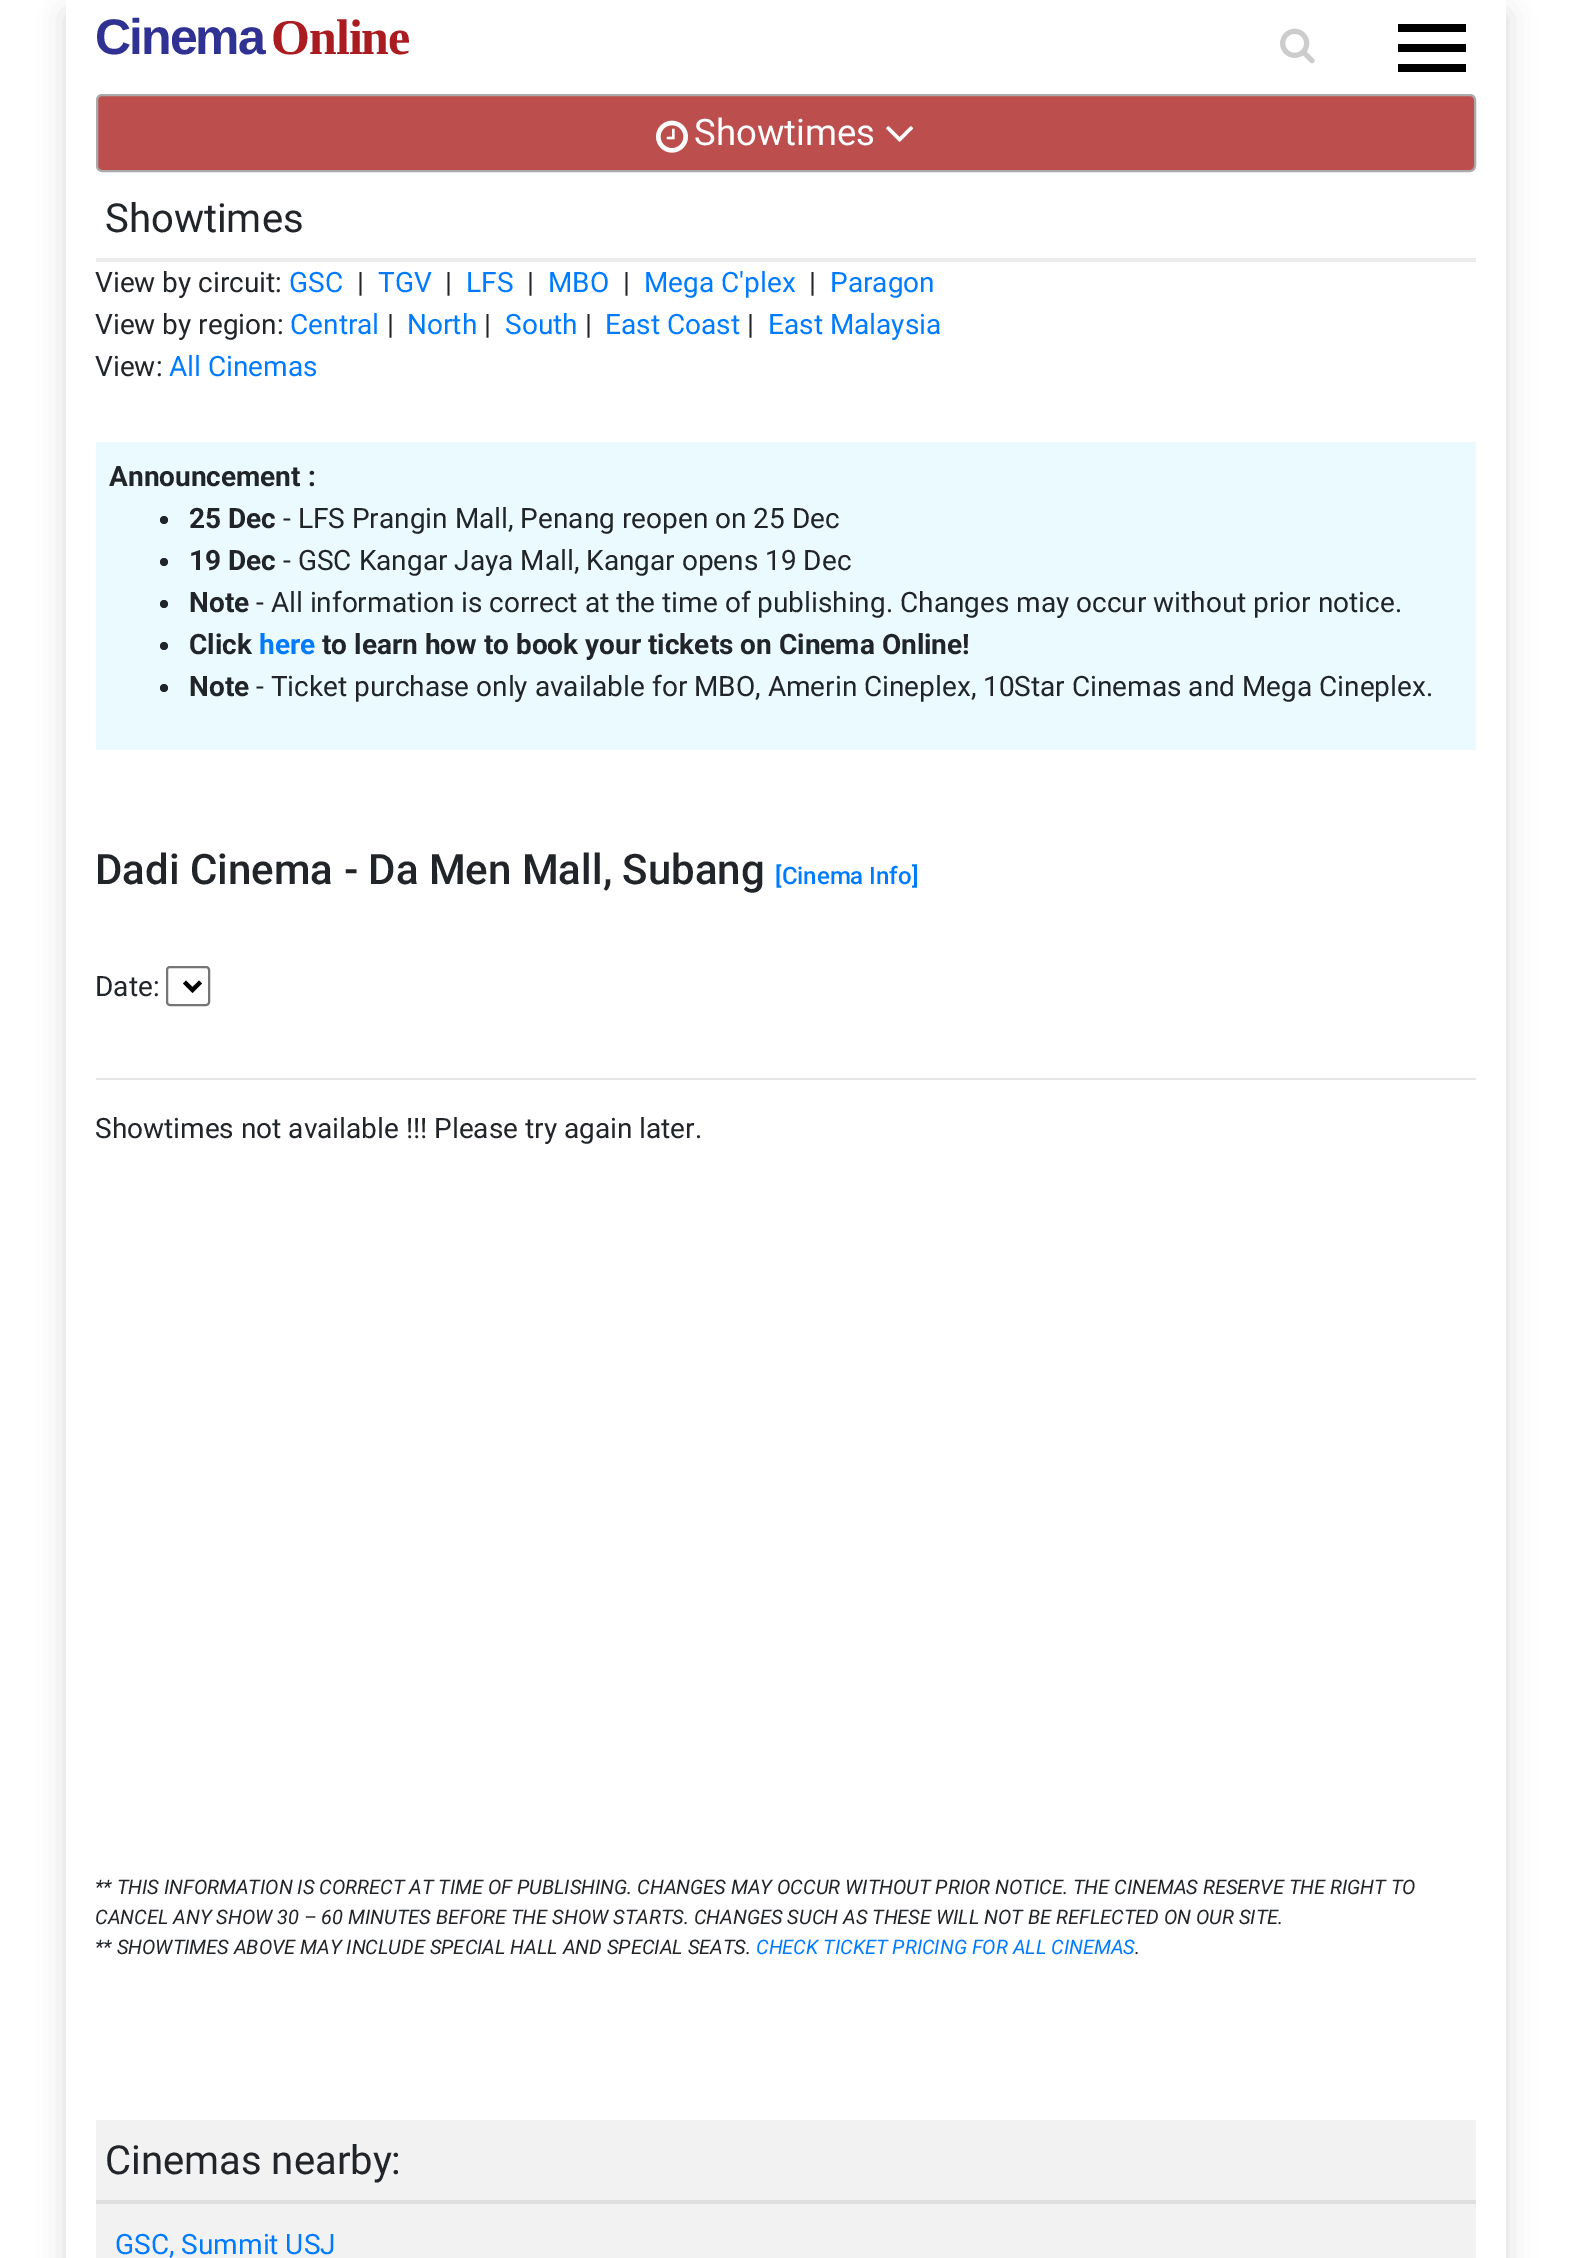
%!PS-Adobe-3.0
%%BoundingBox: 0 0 1569 2258
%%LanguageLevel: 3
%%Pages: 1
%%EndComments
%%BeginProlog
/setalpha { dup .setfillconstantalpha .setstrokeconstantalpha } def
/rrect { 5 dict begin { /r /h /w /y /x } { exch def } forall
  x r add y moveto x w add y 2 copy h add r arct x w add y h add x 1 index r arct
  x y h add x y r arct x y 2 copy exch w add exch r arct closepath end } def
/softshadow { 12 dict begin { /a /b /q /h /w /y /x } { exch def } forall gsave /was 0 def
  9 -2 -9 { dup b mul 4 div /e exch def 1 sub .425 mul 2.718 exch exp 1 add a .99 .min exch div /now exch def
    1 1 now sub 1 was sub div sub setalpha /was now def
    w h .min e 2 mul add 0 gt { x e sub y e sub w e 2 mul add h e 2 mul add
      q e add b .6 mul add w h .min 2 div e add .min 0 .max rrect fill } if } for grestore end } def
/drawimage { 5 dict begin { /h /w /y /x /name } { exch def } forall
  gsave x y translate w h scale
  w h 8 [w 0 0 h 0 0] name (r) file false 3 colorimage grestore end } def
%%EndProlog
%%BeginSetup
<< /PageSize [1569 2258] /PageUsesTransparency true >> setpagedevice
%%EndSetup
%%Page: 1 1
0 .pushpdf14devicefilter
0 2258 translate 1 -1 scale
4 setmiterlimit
1 setgray
0 0 1569 2258 rectfill
gsave
newpath 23 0 moveto 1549 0 lineto 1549 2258 lineto 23 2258 lineto closepath 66 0 moveto 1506 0 lineto 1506 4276 lineto 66 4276 lineto closepath eoclip newpath
0 setgray
66 14 1440 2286 0 14 0.15 softshadow
grestore
(images/1.raw) 1280 28 35 36 drawimage
0 setgray
1398 44 68 8 rectfill
1398 24 68 8 rectfill
1398 64 68 8 rectfill
0.741 0.306 0.306 setrgbcolor
97 95 1378 76 5 rrect gsave fill grestore
0.667 setgray
2 setlinewidth
stroke
(images/2.raw) 656 120 32 33 drawimage
(images/3.raw) 886 126 28 16 drawimage
0.922 setgray
96 258 1380 4 rectfill
0.918 0.98 1 setrgbcolor
96 442 1380 308 rectfill
0.129 0.145 0.161 setrgbcolor
newpath 164 520 4 0 360 arc closepath fill
newpath 164 562 4 0 360 arc closepath fill
newpath 164 604 4 0 360 arc closepath fill
newpath 164 646 4 0 360 arc closepath fill
newpath 164 688 4 0 360 arc closepath fill
0.463 setgray
167 967 42 38 3 rrect stroke
0 setgray
4 setlinewidth
newpath 184.5 982 moveto 192.5 990 lineto 200.5 982 lineto stroke
0.902 setgray
96 1078 1380 2 rectfill
0.949 setgray
96 2120 1380 138 rectfill
0.875 setgray
96 2200 1380 4 rectfill
/LiberationSans-Bold [50 0 0 -50 0 0] selectfont
0.184 0.192 0.576 setrgbcolor
95 54 moveto -2 0 (Cinema) ashow
/LiberationSerif-Bold [50 0 0 -50 0 0] selectfont
0.667 0.11 0.125 setrgbcolor
271 54 moveto -1 0 (Online) ashow
/Roboto-Regular [36.5 0 0 -36.5 0 0] selectfont
1 setgray
694 145 moveto (Showtimes) show
/Roboto-Regular [40 0 0 -40 0 0] selectfont
0.129 0.145 0.161 setrgbcolor
105 232 moveto (Showtimes) show
/Roboto-Regular [28 0 0 -28 0 0] selectfont
95 292 moveto (View by circuit:) show
0 0.482 1 setrgbcolor
289 292 moveto (GSC) show
0.129 0.145 0.161 setrgbcolor
357 292 moveto (|) show
0 0.482 1 setrgbcolor
378 292 moveto (TGV) show
0.129 0.145 0.161 setrgbcolor
445 292 moveto (|) show
0 0.482 1 setrgbcolor
466 292 moveto (LFS) show
0.129 0.145 0.161 setrgbcolor
527 292 moveto (|) show
0 0.482 1 setrgbcolor
548 292 moveto (MBO) show
0.129 0.145 0.161 setrgbcolor
623 292 moveto (|) show
0 0.482 1 setrgbcolor
644 292 moveto (Mega C'plex) show
0.129 0.145 0.161 setrgbcolor
809 292 moveto (|) show
0 0.482 1 setrgbcolor
830 292 moveto (Paragon) show
0.129 0.145 0.161 setrgbcolor
95 334 moveto (View by region:) show
0 0.482 1 setrgbcolor
290 334 moveto (Central) show
0.129 0.145 0.161 setrgbcolor
387 334 moveto (|) show
0 0.482 1 setrgbcolor
407 334 moveto (North) show
0.129 0.145 0.161 setrgbcolor
484 334 moveto (|) show
0 0.482 1 setrgbcolor
505 334 moveto (South) show
0.129 0.145 0.161 setrgbcolor
585 334 moveto (|) show
0 0.482 1 setrgbcolor
605 334 moveto (East Coast) show
0.129 0.145 0.161 setrgbcolor
747 334 moveto (|) show
0 0.482 1 setrgbcolor
768 334 moveto (East Malaysia) show
0.129 0.145 0.161 setrgbcolor
95 376 moveto (View:) show
0 0.482 1 setrgbcolor
169 376 moveto (All Cinemas) show
/Roboto-Bold [28 0 0 -28 0 0] selectfont
0.129 0.145 0.161 setrgbcolor
109 486 moveto (Announcement :) show
189 528 moveto (25 Dec) show
/Roboto-Regular [28 0 0 -28 0 0] selectfont
283 528 moveto (- LFS Prangin Mall, Penang reopen on 25 Dec) show
/Roboto-Bold [28 0 0 -28 0 0] selectfont
189 570 moveto (19 Dec) show
/Roboto-Regular [28 0 0 -28 0 0] selectfont
283 570 moveto (- GSC Kangar Jaya Mall, Kangar opens 19 Dec) show
/Roboto-Bold [28 0 0 -28 0 0] selectfont
189 612 moveto (Note) show
/Roboto-Regular [28 0 0 -28 0 0] selectfont
256 612 moveto (- All information is correct at the time of publishing. Changes may occur without prior notice.) show
/Roboto-Bold [28 0 0 -28 0 0] selectfont
189 654 moveto (Click) show
0 0.482 1 setrgbcolor
259 654 moveto (here) show
0.129 0.145 0.161 setrgbcolor
322 654 moveto (to learn how to book your tickets on Cinema Online!) show
189 696 moveto (Note) show
/Roboto-Regular [28 0 0 -28 0 0] selectfont
256 696 moveto (- Ticket purchase only available for MBO, Amerin Cineplex, 10Star Cinemas and Mega Cineplex.) show
/Roboto-Medium [42 0 0 -42 0 0] selectfont
95 884 moveto (Dadi Cinema - Da Men Mall, Subang) show
/Roboto-Medium [24 0 0 -24 0 0] selectfont
0 0.482 1 setrgbcolor
775 884 moveto ([Cinema Info]) show
/Roboto-Regular [28 0 0 -28 0 0] selectfont
0.129 0.145 0.161 setrgbcolor
95 996 moveto (Date:) show
95 1138 moveto (Showtimes not available !!! Please try again later.) show
/Roboto-Italic [20 0 0 -20 0 0] selectfont
95 1894 moveto (** THIS INFORMATION IS CORRECT AT TIME OF PUBLISHING. CHANGES MAY OCCUR WITHOUT PRIOR NOTICE. THE CINEMAS RESERVE THE RIGHT TO) show
95 1924 moveto (CANCEL ANY SHOW 30 – 60 MINUTES BEFORE THE SHOW STARTS. CHANGES SUCH AS THESE WILL NOT BE REFLECTED ON OUR SITE.) show
95 1954 moveto (** SHOWTIMES ABOVE MAY INCLUDE SPECIAL HALL AND SPECIAL SEATS.) show
0 0.482 1 setrgbcolor
756 1954 moveto (CHECK TICKET PRICING FOR ALL CINEMAS) show
0.129 0.145 0.161 setrgbcolor
1135 1954 moveto (.) show
/Roboto-Regular [40 0 0 -40 0 0] selectfont
105 2174 moveto (Cinemas nearby:) show
/Roboto-Regular [28 0 0 -28 0 0] selectfont
0 0.482 1 setrgbcolor
115 2254 moveto (GSC, Summit USJ) show
.poppdf14devicefilter showpage
%%EOF
